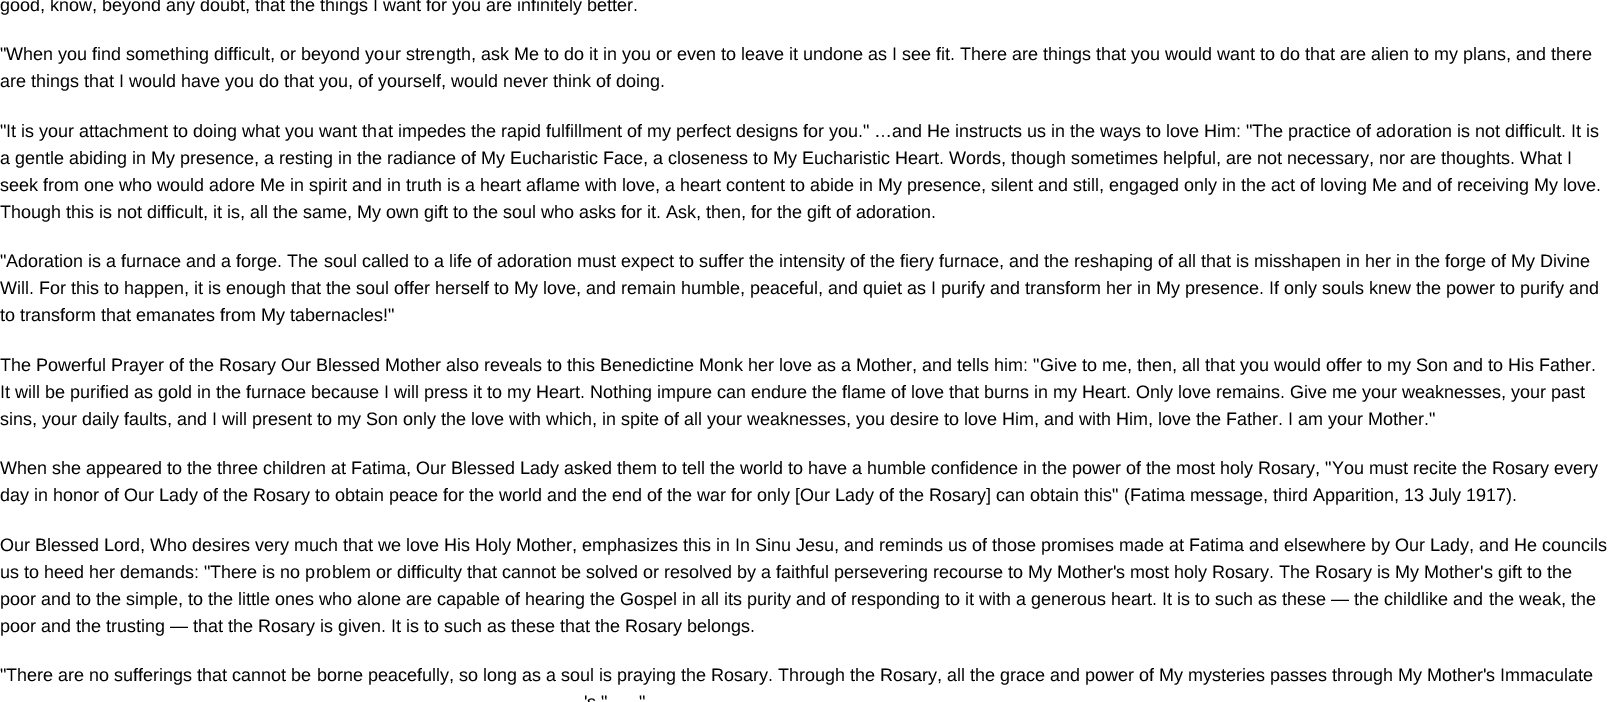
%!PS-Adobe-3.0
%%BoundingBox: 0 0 1608 702
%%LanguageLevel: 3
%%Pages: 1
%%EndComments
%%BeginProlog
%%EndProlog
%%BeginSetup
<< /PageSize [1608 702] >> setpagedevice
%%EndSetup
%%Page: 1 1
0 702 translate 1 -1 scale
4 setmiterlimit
1 setgray
0 0 1608 702 rectfill
/LiberationSans-Regular [18 0 0 -18 0 0] selectfont
0 setgray
0 11 moveto (good, know, beyond any doubt, that the things I want for you are infinitely better.) show
0 60 moveto ("When you find something difficult, or beyond your strength, ask Me to do it in you or even to leave it undone as I see fit. There are things that you would want to do that are alien to my plans, and there) show
0 87 moveto (are things that I would have you do that you, of yourself, would never think of doing.) show
0 137 moveto ("It is your attachment to doing what you want that impedes the rapid fulfillment of my perfect designs for you." …and He instructs us in the ways to love Him: "The practice of adoration is not difficult. It is) show
0 164 moveto (a gentle abiding in My presence, a resting in the radiance of My Eucharistic Face, a closeness to My Eucharistic Heart. Words, though sometimes helpful, are not necessary, nor are thoughts. What I) show
0 191 moveto (seek from one who would adore Me in spirit and in truth is a heart aflame with love, a heart content to abide in My presence, silent and still, engaged only in the act of loving Me and of receiving My love.) show
0 218 moveto (Though this is not difficult, it is, all the same, My own gift to the soul who asks for it. Ask, then, for the gift of adoration.) show
0 267 moveto ("Adoration is a furnace and a forge. The soul called to a life of adoration must expect to suffer the intensity of the fiery furnace, and the reshaping of all that is misshapen in her in the forge of My Divine) show
0 294 moveto (Will. For this to happen, it is enough that the soul offer herself to My love, and remain humble, peaceful, and quiet as I purify and transform her in My presence. If only souls knew the power to purify and) show
0 321 moveto (to transform that emanates from My tabernacles!") show
0 371 moveto (The Powerful Prayer of the Rosary Our Blessed Mother also reveals to this Benedictine Monk her love as a Mother, and tells him: "Give to me, then, all that you would offer to my Son and to His Father.) show
0 398 moveto (It will be purified as gold in the furnace because I will press it to my Heart. Nothing impure can endure the flame of love that burns in my Heart. Only love remains. Give me your weaknesses, your past) show
0 425 moveto (sins, your daily faults, and I will present to my Son only the love with which, in spite of all your weaknesses, you desire to love Him, and with Him, love the Father. I am your Mother.") show
0 474 moveto (When she appeared to the three children at Fatima, Our Blessed Lady asked them to tell the world to have a humble confidence in the power of the most holy Rosary, "You must recite the Rosary every) show
0 501 moveto (day in honor of Our Lady of the Rosary to obtain peace for the world and the end of the war for only [Our Lady of the Rosary] can obtain this" \(Fatima message, third Apparition, 13 July 1917\).) show
0 551 moveto (Our Blessed Lord, Who desires very much that we love His Holy Mother, emphasizes this in In Sinu Jesu, and reminds us of those promises made at Fatima and elsewhere by Our Lady, and He councils) show
0 578 moveto (us to heed her demands: "There is no problem or difficulty that cannot be solved or resolved by a faithful persevering recourse to My Mother's most holy Rosary. The Rosary is My Mother's gift to the) show
0 605 moveto (poor and to the simple, to the little ones who alone are capable of hearing the Gospel in all its purity and of responding to it with a generous heart. It is to such as these — the childlike and the weak, the) show
0 632 moveto (poor and the trusting — that the Rosary is given. It is to such as these that the Rosary belongs.) show
0 681 moveto ("There are no sufferings that cannot be borne peacefully, so long as a soul is praying the Rosary. Through the Rosary, all the grace and power of My mysteries passes through My Mother's Immaculate) show
584 708 moveto ('s ") show
639 708 moveto (") show
showpage
%%EOF
